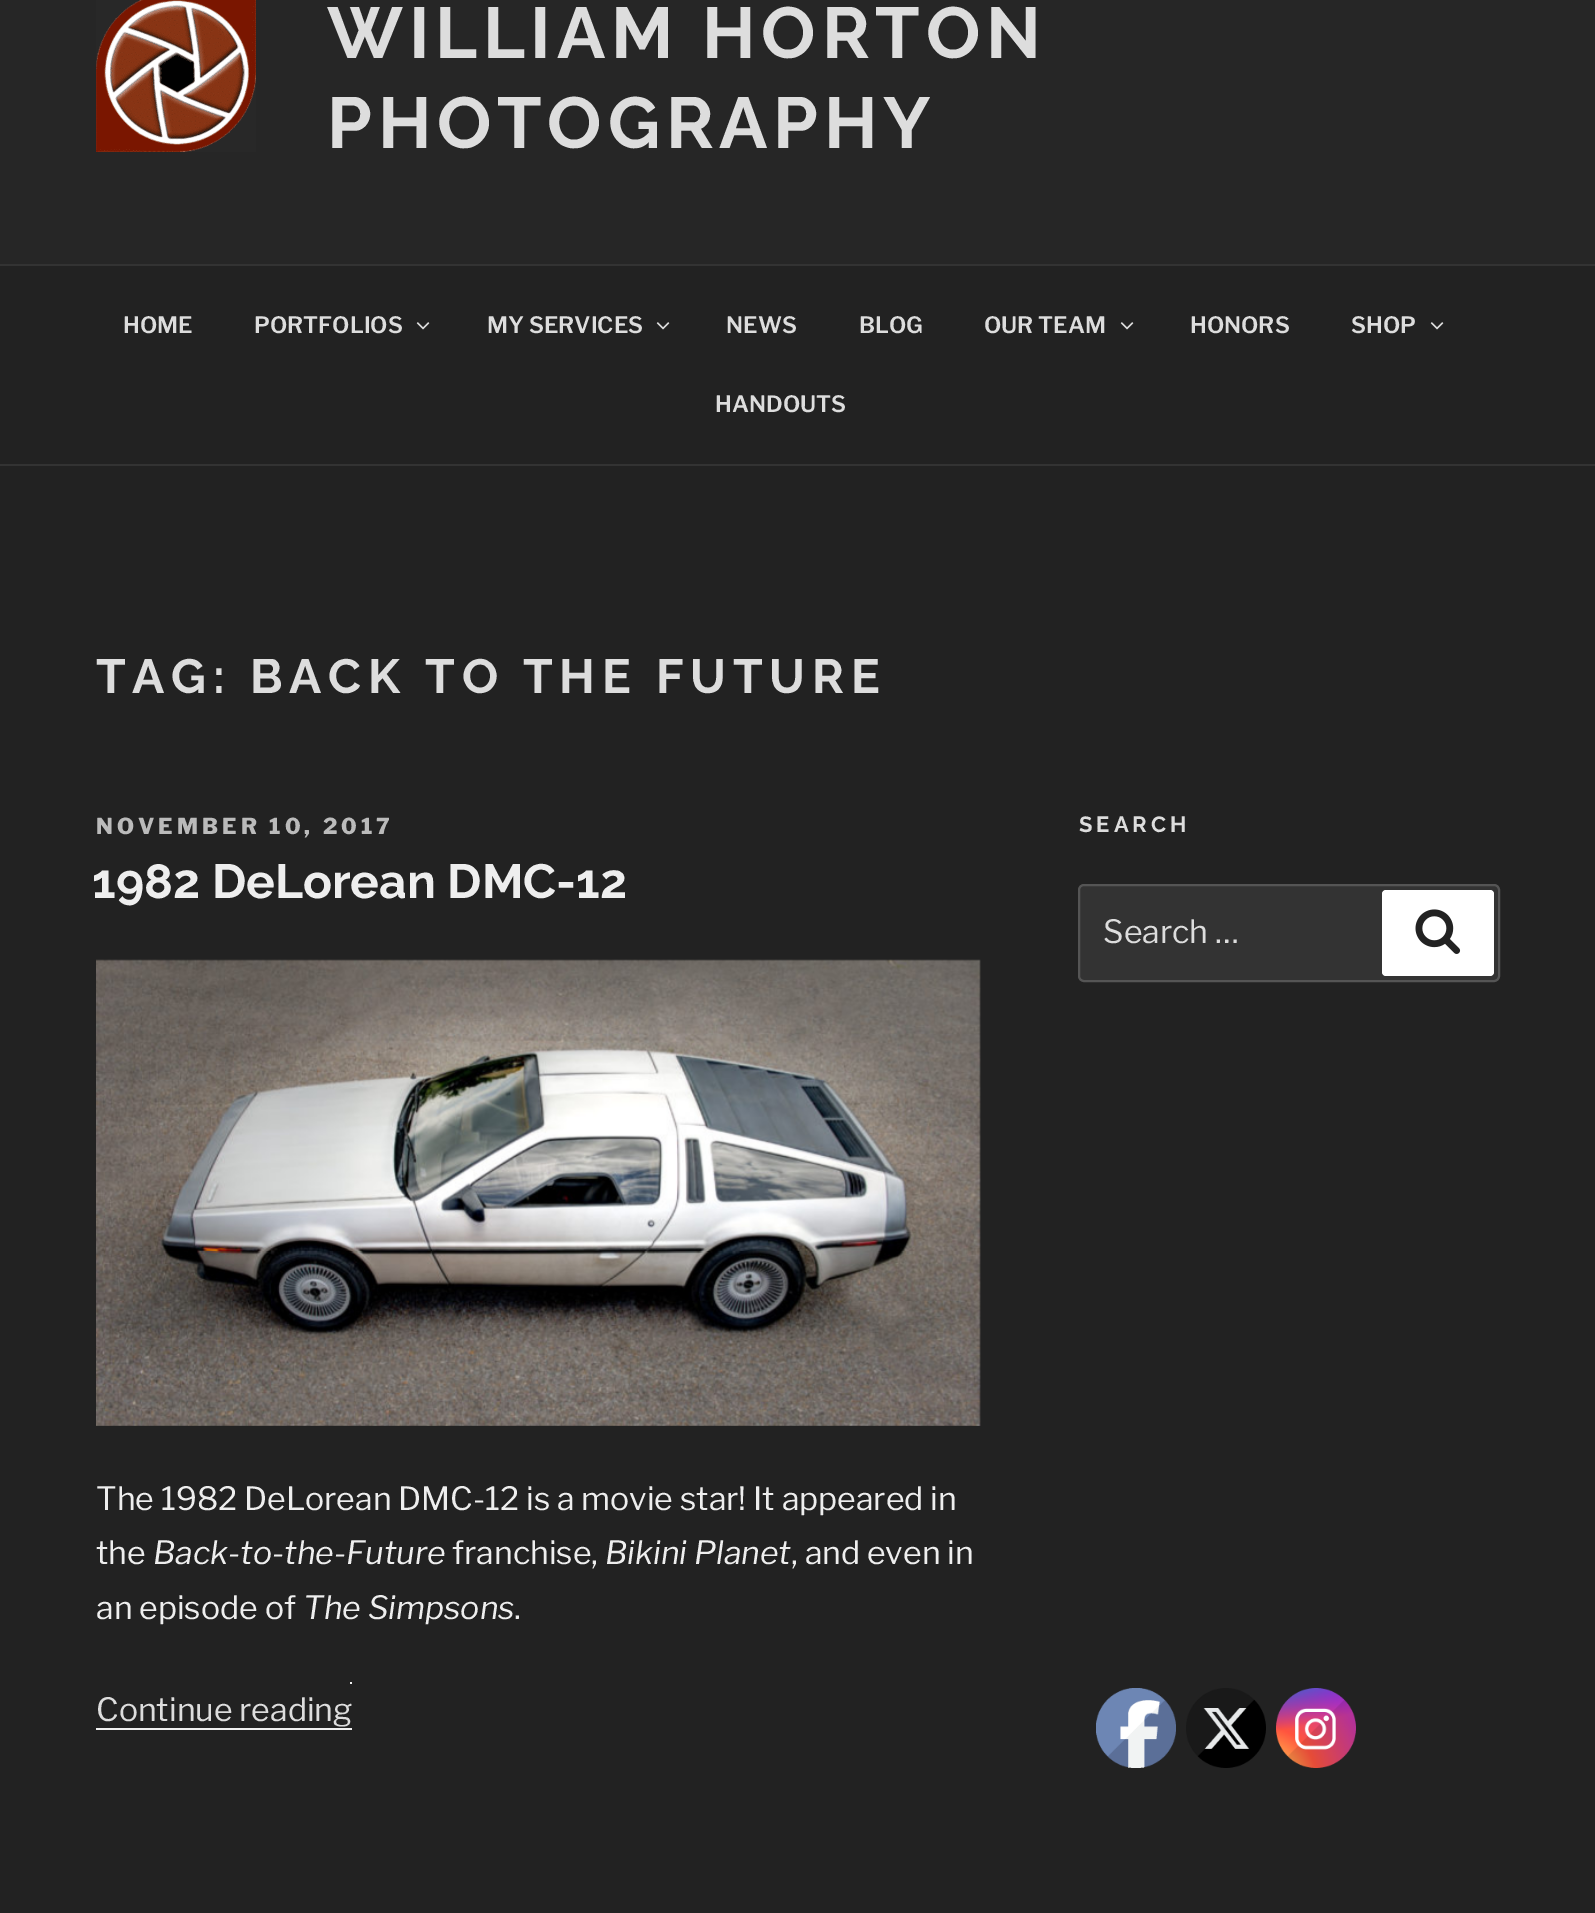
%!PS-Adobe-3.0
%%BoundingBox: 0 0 1595 1913
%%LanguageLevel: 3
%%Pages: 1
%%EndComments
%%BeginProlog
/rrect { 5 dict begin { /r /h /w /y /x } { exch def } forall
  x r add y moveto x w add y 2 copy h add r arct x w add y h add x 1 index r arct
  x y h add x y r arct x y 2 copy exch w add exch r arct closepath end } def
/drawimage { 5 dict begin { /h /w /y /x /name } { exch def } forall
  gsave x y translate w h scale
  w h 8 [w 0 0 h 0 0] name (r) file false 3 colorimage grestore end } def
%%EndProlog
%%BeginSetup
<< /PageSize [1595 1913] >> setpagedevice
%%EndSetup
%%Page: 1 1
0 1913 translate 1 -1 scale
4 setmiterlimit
0.133 setgray
0 0 1595 1913 rectfill
0.149 setgray
0 0 1595 264 rectfill
(images/1.raw) 96 0 160 152 drawimage
0.2 setgray
0 264 1595 2 rectfill
0 464 1595 2 rectfill
(images/2.raw) 416 322 14 8 drawimage
(images/2.raw) 656 322 14 8 drawimage
(images/2.raw) 1120 322 14 8 drawimage
(images/2.raw) 1430 322 14 8 drawimage
(images/3.raw) 96 959 885 467 drawimage
0.941 setgray
96 1728 256 2 rectfill
350 1682 2 2 rectfill
0.2 setgray
1079 885 420 96 5 rrect gsave fill grestore
0.333 setgray
2 setlinewidth
stroke
1 setgray
1382 890 112 86 4 rrect fill
(images/4.raw) 1415 909 46 45 drawimage
(images/5.raw) 1096 1688 80 80 drawimage
(images/6.raw) 1186 1688 80 80 drawimage
(images/7.raw) 1276 1688 80 80 drawimage
/Raleway-Bold [72 0 0 -72 0 0] selectfont
0.867 setgray
327 58 moveto 5.75 0 (WILLIAM HORTON) ashow
327 148 moveto 5.75 0 (PHOTOGRAPHY) ashow
/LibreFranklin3-Thin [22.5 0 0 -22.5 0 0] selectfont
123 333 moveto (HOME) show
254 333 moveto (PORTFOLIOS) show
487 333 moveto (MY SERVICES) show
726 333 moveto (NEWS) show
859 333 moveto (BLOG) show
984 333 moveto (OUR TEAM) show
1190 333 moveto (HONORS) show
1351 333 moveto (SHOP) show
715 412 moveto (HANDOUTS) show
/Raleway-Bold [48 0 0 -48 0 0] selectfont
96 693 moveto 6.75 0 (TAG: BACK TO THE FUTURE) ashow
/LibreFranklin-Thin [22 0 0 -22 0 0] selectfont
0.733 setgray
96 834 moveto 4 0 (NOVEMBER 10, 2017) ashow
/Raleway-Bold [48 0 0 -48 0 0] selectfont
0.933 setgray
92 898 moveto (1982 DeLorean DMC-12) show
/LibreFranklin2-Thin [32 0 0 -32 0 0] selectfont
96 1510 moveto (The 1982 DeLorean DMC-12 is a movie star! It appeared in) show
96 1564 moveto (the) show
/LibreFranklin-ThinItalic [32 0 0 -32 0 0] selectfont
153 1564 moveto (Back-to-the-Future) show
/LibreFranklin2-Thin [32 0 0 -32 0 0] selectfont
452 1564 moveto (franchise,) show
/LibreFranklin-ThinItalic [32 0 0 -32 0 0] selectfont
605 1564 moveto (Bikini Planet) show
/LibreFranklin2-Thin [32 0 0 -32 0 0] selectfont
791 1564 moveto (, and even in) show
96 1619 moveto (an episode of) show
/LibreFranklin-ThinItalic [32 0 0 -32 0 0] selectfont
303 1619 moveto (The Simpsons) show
/LibreFranklin2-Thin [32 0 0 -32 0 0] selectfont
514 1619 moveto (.) show
0.867 setgray
96 1721 moveto (Continue reading) show
/Raleway-Bold [22 0 0 -22 0 0] selectfont
1079 832 moveto 4 0 (SEARCH) ashow
/LibreFranklin2-Thin [32 0 0 -32 0 0] selectfont
1103 943 moveto (Search …) show
showpage
%%EOF
